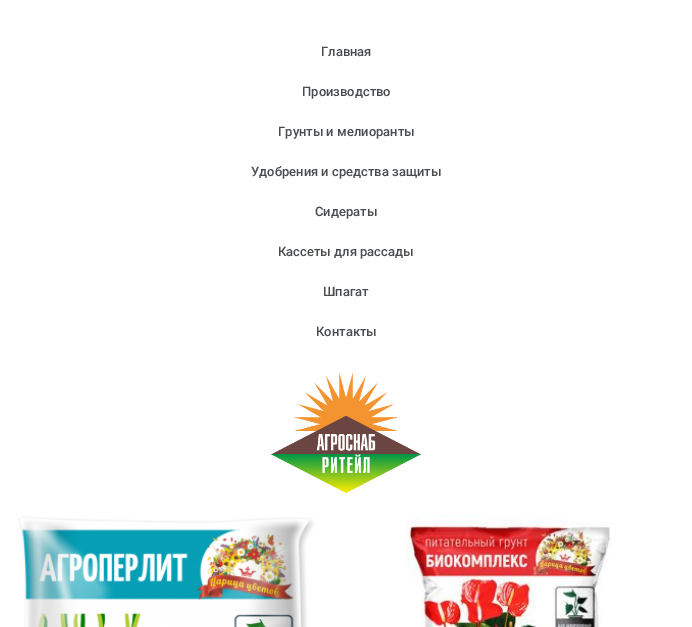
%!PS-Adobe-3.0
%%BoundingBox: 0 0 692 627
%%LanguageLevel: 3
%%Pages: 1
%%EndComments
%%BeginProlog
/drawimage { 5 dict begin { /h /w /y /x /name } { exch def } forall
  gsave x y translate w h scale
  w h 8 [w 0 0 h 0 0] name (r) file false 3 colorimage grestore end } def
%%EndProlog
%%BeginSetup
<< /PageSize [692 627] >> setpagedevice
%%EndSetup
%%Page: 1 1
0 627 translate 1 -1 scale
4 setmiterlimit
1 setgray
0 0 692 627 rectfill
(images/1.raw) 271 372 150 121 drawimage
(images/2.raw) 18 516 297 111 drawimage
(images/3.raw) 405 513 208 114 drawimage
/Roboto-Medium [13 0 0 -13 0 0] selectfont
0.286 0.298 0.31 setrgbcolor
321 56 moveto (Главная) show
302 96 moveto (Производство) show
278 136 moveto (Грунты и мелиоранты) show
251 176 moveto (Удобрения и средства защиты) show
315 216 moveto (Сидераты) show
278 256 moveto (Кассеты для рассады) show
323 296 moveto (Шпагат) show
316 336 moveto (Контакты) show
showpage
%%EOF
